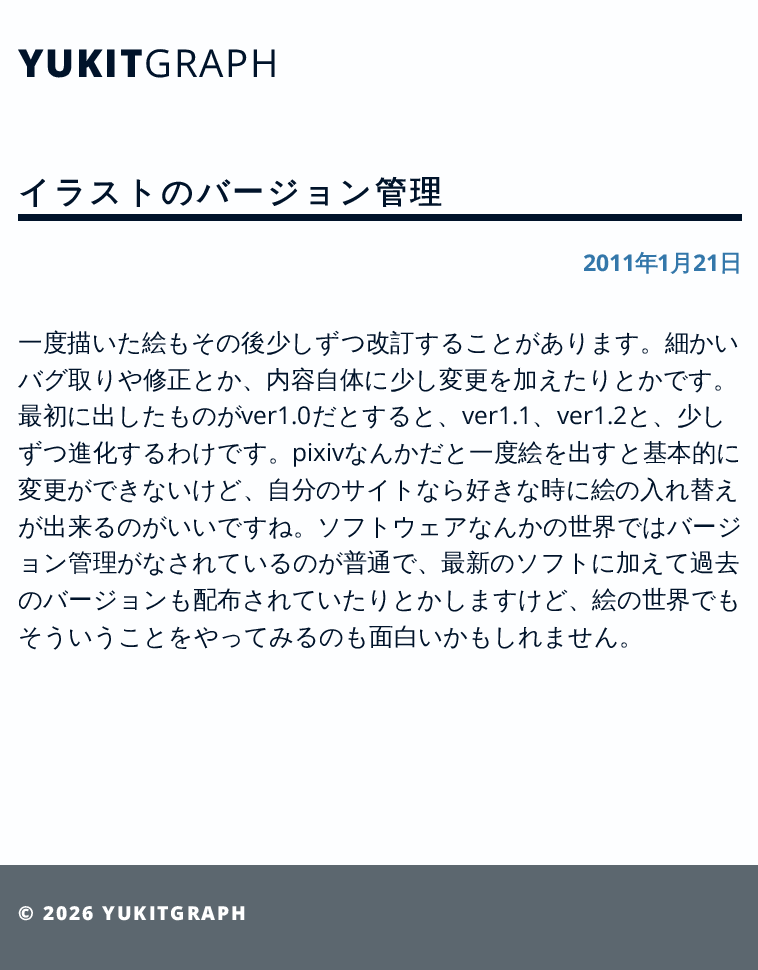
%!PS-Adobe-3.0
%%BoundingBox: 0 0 758 970
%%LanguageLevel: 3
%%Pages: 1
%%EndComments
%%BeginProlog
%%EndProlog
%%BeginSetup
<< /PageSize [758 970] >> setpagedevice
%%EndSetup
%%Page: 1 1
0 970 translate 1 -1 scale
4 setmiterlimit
0.992 0.996 1 setrgbcolor
0 0 758 970 rectfill
0 0.075 0.165 setrgbcolor
18 214 724 7 rectfill
0.361 0.404 0.435 setrgbcolor
0 865 758 105 rectfill
/OpenSans-ExtraBold [38.5 0 0 -38.5 0 0] selectfont
0 0.075 0.165 setrgbcolor
18 77 moveto 1.75 0 (YUKIT) ashow
/OpenSans-Regular [38.5 0 0 -38.5 0 0] selectfont
144 77 moveto 1.75 0 (GRAPH) ashow
/WenQuanYiZenHei-Bold [31.5 0 0 -31.5 0 0] selectfont
18 203 moveto 3.5 0 (イラストのバージョン管理) ashow
/OpenSans-Bold [23 0 0 -23 0 0] selectfont
0.2 0.467 0.667 setrgbcolor
583 271 moveto (2011) show
/WenQuanYiZenHei-Bold [23 0 0 -23 0 0] selectfont
635 271 moveto (年) show
/OpenSans-Bold [23 0 0 -23 0 0] selectfont
657 271 moveto (1) show
/WenQuanYiZenHei-Bold [23 0 0 -23 0 0] selectfont
670 271 moveto (月) show
/OpenSans-Bold [23 0 0 -23 0 0] selectfont
693 271 moveto (21) show
/WenQuanYiZenHei-Bold [23 0 0 -23 0 0] selectfont
719 271 moveto (日) show
/WenQuanYiZenHei-Medium [24.5 0 0 -24.5 0 0] selectfont
0 0.075 0.165 setrgbcolor
18 351 moveto (一度描いた絵もその後少しずつ改訂することがあります。細かい) show
18 388 moveto (バグ取りや修正とか、内容自体に少し変更を加えたりとかです。) show
18 424 moveto (最初に出したものが) show
/OpenSans-Regular [24.5 0 0 -24.5 0 0] selectfont
241 424 moveto (ver1.0) show
/WenQuanYiZenHei-Medium [24.5 0 0 -24.5 0 0] selectfont
312 424 moveto (だとすると、) show
/OpenSans-Regular [24.5 0 0 -24.5 0 0] selectfont
462 424 moveto (ver1.1) show
/WenQuanYiZenHei-Medium [24.5 0 0 -24.5 0 0] selectfont
532 424 moveto (、) show
/OpenSans-Regular [24.5 0 0 -24.5 0 0] selectfont
557 424 moveto (ver1.2) show
/WenQuanYiZenHei-Medium [24.5 0 0 -24.5 0 0] selectfont
627 424 moveto (と、少し) show
18 461 moveto (ずつ進化するわけです。) show
/OpenSans-Regular [24.5 0 0 -24.5 0 0] selectfont
292 461 moveto (pixiv) show
/WenQuanYiZenHei-Medium [24.5 0 0 -24.5 0 0] selectfont
344 461 moveto (なんかだと一度絵を出すと基本的に) show
18 498 moveto (変更ができないけど、自分のサイトなら好きな時に絵の入れ替え) show
18 535 moveto (が出来るのがいいですね。ソフトウェアなんかの世界ではバージ) show
18 571 moveto (ョン管理がなされているのが普通で、最新のソフトに加えて過去) show
18 608 moveto (のバージョンも配布されていたりとかしますけど、絵の世界でも) show
18 645 moveto (そういうことをやってみるのも面白いかもしれません。) show
/OpenSans-ExtraBold [19.25 0 0 -19.25 0 0] selectfont
1 setgray
18 920 moveto 1.9 0 (© 2026 YUKITGRAPH) ashow
showpage
%%EOF
